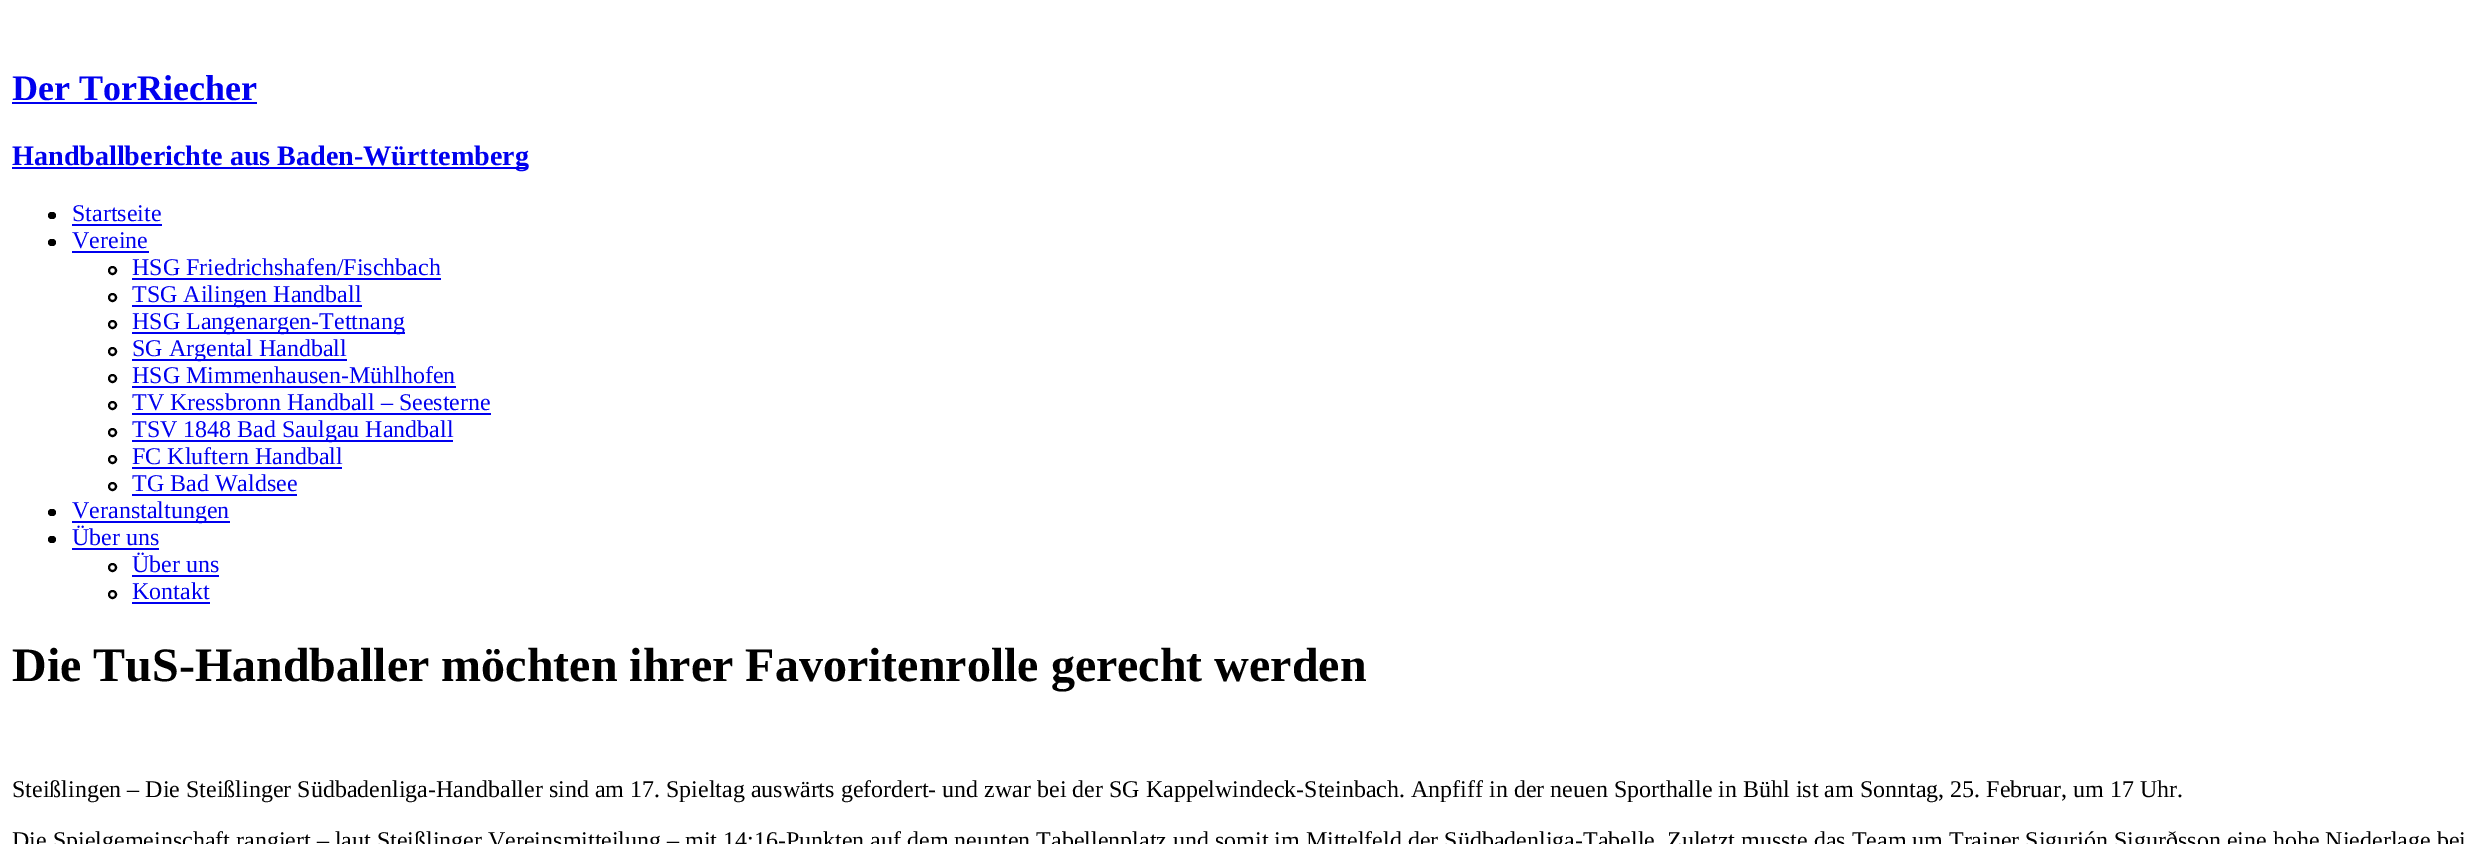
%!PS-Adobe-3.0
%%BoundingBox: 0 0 2483 844
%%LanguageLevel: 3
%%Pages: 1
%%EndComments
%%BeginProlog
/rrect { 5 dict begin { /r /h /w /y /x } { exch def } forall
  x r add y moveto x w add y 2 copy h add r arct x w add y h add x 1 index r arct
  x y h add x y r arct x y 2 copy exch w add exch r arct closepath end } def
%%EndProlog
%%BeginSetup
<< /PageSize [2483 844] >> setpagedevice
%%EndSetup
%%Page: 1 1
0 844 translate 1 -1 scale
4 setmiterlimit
1 setgray
0 0 2483 844 rectfill
0 0 0.933 setrgbcolor
12 102 245 2 rectfill
12 167 516 2 rectfill
0 setgray
48 212 8 7 3.5 rrect fill
0 0 0.933 setrgbcolor
72 224 90 2 rectfill
0 setgray
48 239 8 7 3.5 rrect fill
0 0 0.933 setrgbcolor
72 251 77 2 rectfill
0 setgray
2 setlinewidth
newpath 112.5 270.5 3.5 0 360 arc closepath stroke
0 0 0.933 setrgbcolor
132 278 309 2 rectfill
0 setgray
newpath 112.5 297.5 3.5 0 360 arc closepath stroke
0 0 0.933 setrgbcolor
132 305 230 2 rectfill
0 setgray
newpath 112.5 324.5 3.5 0 360 arc closepath stroke
0 0 0.933 setrgbcolor
132 332 273 2 rectfill
0 setgray
newpath 112.5 351.5 3.5 0 360 arc closepath stroke
0 0 0.933 setrgbcolor
132 359 215 2 rectfill
0 setgray
newpath 112.5 378.5 3.5 0 360 arc closepath stroke
0 0 0.933 setrgbcolor
132 386 324 2 rectfill
0 setgray
newpath 112.5 405.5 3.5 0 360 arc closepath stroke
0 0 0.933 setrgbcolor
132 413 359 2 rectfill
0 setgray
newpath 112.5 432.5 3.5 0 360 arc closepath stroke
0 0 0.933 setrgbcolor
132 440 321 2 rectfill
0 setgray
newpath 112.5 459.5 3.5 0 360 arc closepath stroke
0 0 0.933 setrgbcolor
132 467 210 2 rectfill
0 setgray
newpath 112.5 486.5 3.5 0 360 arc closepath stroke
0 0 0.933 setrgbcolor
132 494 165 2 rectfill
0 setgray
48 509 8 7 3.5 rrect fill
0 0 0.933 setrgbcolor
72 521 158 2 rectfill
0 setgray
48 536 8 7 3.5 rrect fill
0 0 0.933 setrgbcolor
72 548 87 2 rectfill
0 setgray
newpath 112.5 567.5 3.5 0 360 arc closepath stroke
0 0 0.933 setrgbcolor
132 575 87 2 rectfill
0 setgray
newpath 112.5 594.5 3.5 0 360 arc closepath stroke
0 0 0.933 setrgbcolor
132 602 78 2 rectfill
/LiberationSerif-Bold [36 0 0 -36 0 0] selectfont
12 100 moveto (Der TorRiecher) show
/LiberationSerif-Bold [28.1 0 0 -28.1 0 0] selectfont
12 165 moveto (Handballberichte aus Baden-Württemberg) show
/LiberationSerif-Regular [24 0 0 -24 0 0] selectfont
72 221 moveto (Startseite) show
72 248 moveto (Vereine) show
132 275 moveto (HSG Friedrichshafen/Fischbach) show
132 302 moveto (TSG Ailingen Handball) show
132 329 moveto (HSG Langenargen-Tettnang) show
132 356 moveto (SG Argental Handball) show
132 383 moveto (HSG Mimmenhausen-Mühlhofen) show
132 410 moveto (TV Kressbronn Handball – Seesterne) show
132 437 moveto (TSV 1848 Bad Saulgau Handball) show
132 464 moveto (FC Kluftern Handball) show
132 491 moveto (TG Bad Waldsee) show
72 518 moveto (Veranstaltungen) show
72 545 moveto (Über uns) show
132 572 moveto (Über uns) show
132 599 moveto (Kontakt) show
/LiberationSerif-Bold [48 0 0 -48 0 0] selectfont
0 setgray
12 681 moveto (Die TuS-Handballer möchten ihrer Favoritenrolle gerecht werden) show
/LiberationSerif-Regular [24 0 0 -24 0 0] selectfont
12 797 moveto (Steißlingen – Die Steißlinger Südbadenliga-Handballer sind am 17. Spieltag auswärts gefordert- und zwar bei der SG Kappelwindeck-Steinbach. Anpfiff in der neuen Sporthalle in Bühl ist am Sonntag, 25. Februar, um 17 Uhr.) show
12 848 moveto (Die Spielgemeinschaft rangiert – laut Steißlinger Vereinsmitteilung – mit 14:16-Punkten auf dem neunten Tabellenplatz und somit im Mittelfeld der Südbadenliga-Tabelle. Zuletzt musste das Team um Trainer Sigurjón Sigurðsson eine hohe Niederlage bei) show
showpage
%%EOF
